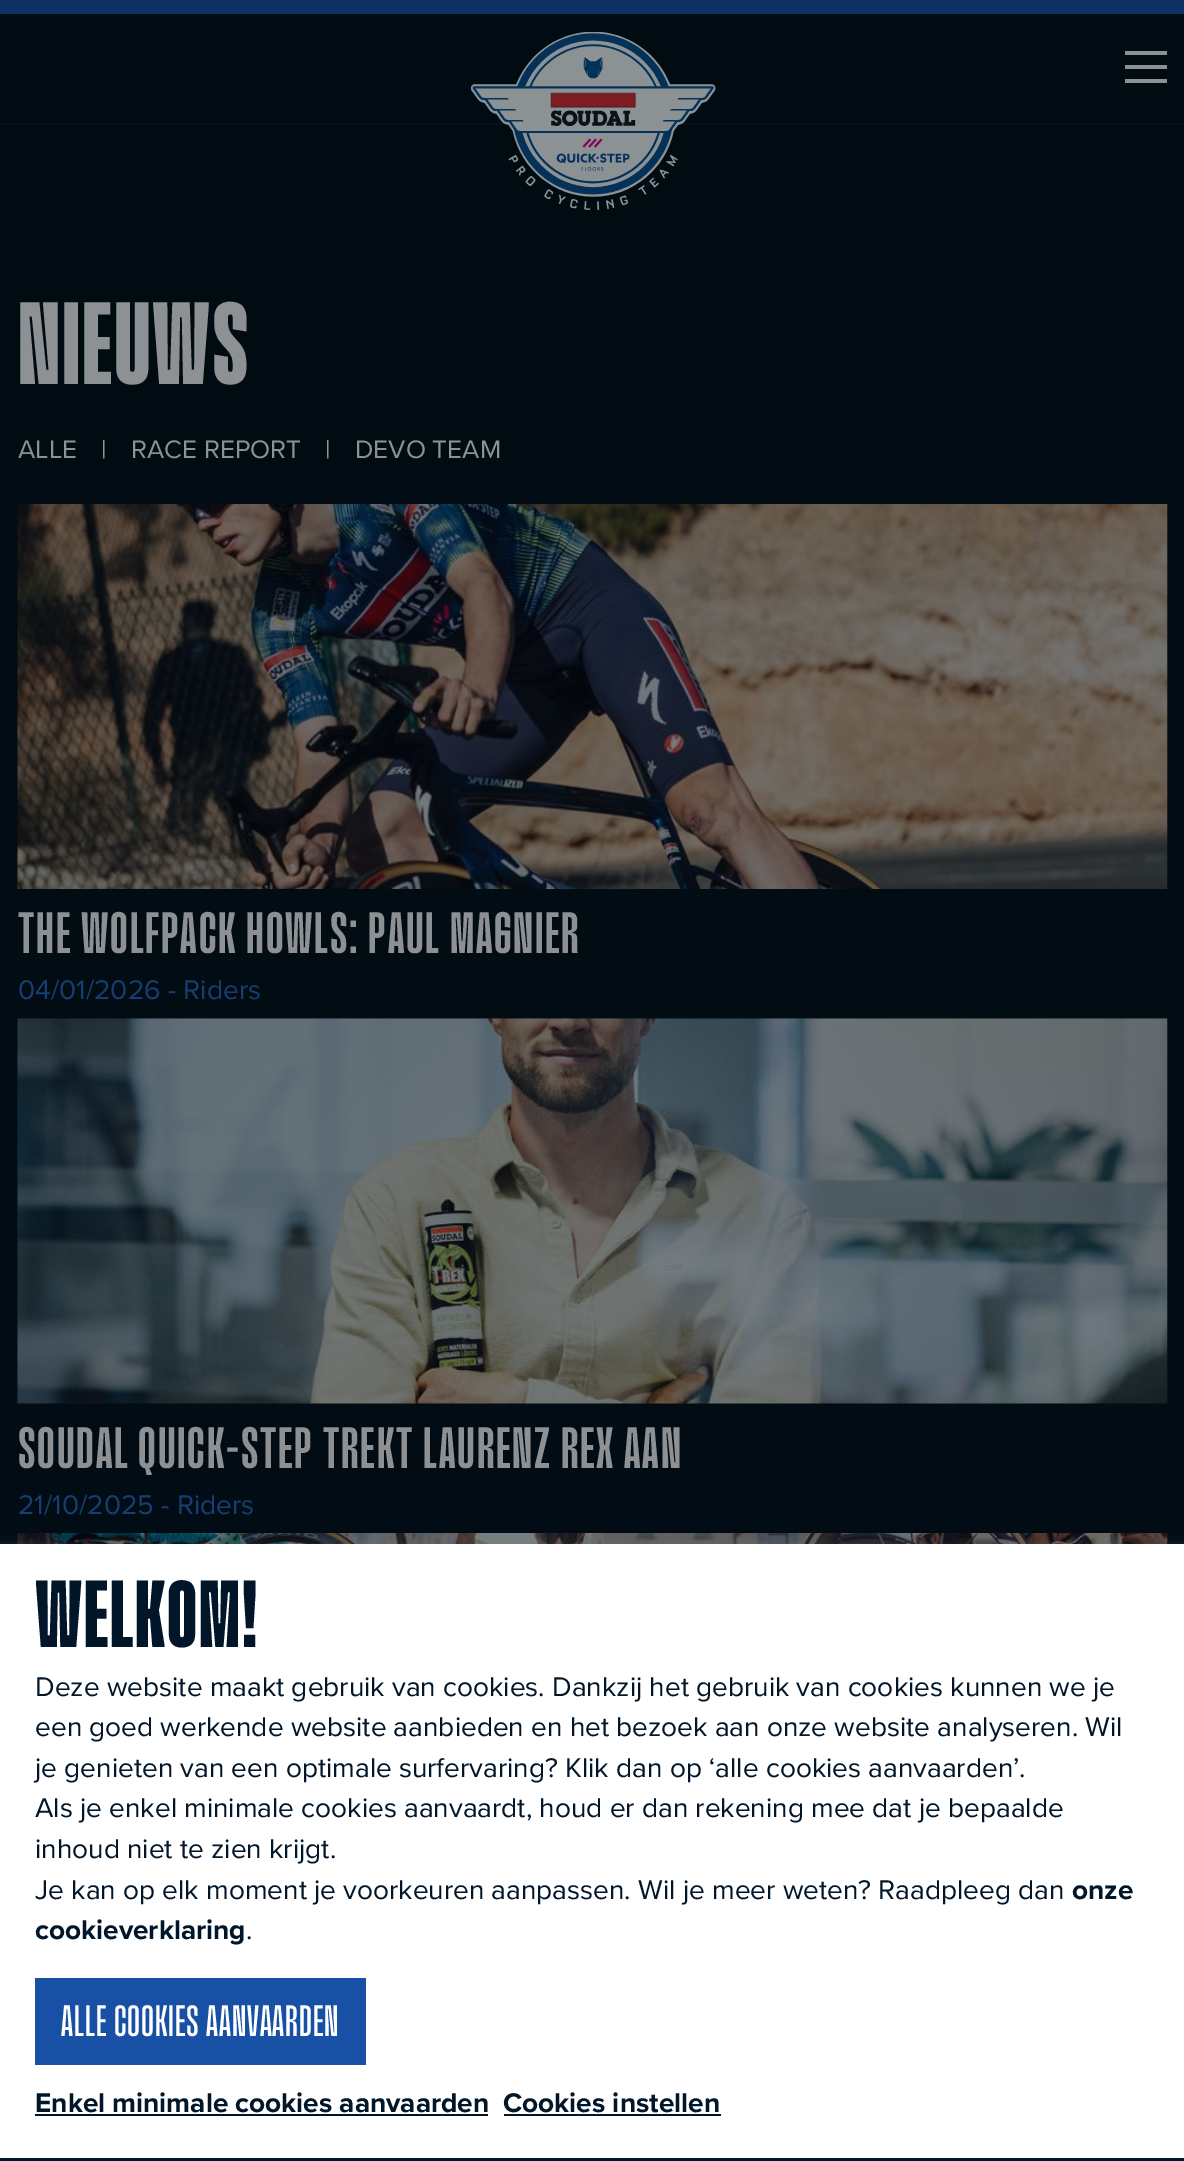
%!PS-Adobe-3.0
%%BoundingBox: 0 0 1184 2161
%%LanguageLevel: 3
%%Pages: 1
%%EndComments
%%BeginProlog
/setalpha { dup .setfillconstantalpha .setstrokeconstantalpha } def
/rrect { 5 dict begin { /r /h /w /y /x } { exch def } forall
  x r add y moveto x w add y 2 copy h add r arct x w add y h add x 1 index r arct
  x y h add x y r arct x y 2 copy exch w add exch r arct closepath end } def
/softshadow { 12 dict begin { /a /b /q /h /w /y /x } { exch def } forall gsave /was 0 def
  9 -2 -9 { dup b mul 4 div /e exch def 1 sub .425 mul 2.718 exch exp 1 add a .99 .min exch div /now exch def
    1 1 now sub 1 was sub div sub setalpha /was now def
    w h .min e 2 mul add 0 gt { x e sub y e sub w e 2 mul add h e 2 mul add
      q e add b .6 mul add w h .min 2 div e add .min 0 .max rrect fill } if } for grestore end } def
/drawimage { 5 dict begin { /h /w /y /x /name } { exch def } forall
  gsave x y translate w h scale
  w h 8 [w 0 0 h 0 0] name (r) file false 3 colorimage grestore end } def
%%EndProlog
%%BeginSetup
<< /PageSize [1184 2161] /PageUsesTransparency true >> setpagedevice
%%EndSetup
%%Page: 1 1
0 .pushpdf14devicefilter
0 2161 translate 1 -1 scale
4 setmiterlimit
1 setgray
0 0 1184 2161 rectfill
0.004 0.043 0.071 setrgbcolor
0 14 1184 109 rectfill
0.004 0.067 0.122 setrgbcolor
0 123 1184 2 rectfill
0.051 0.192 0.384 setrgbcolor
0 0 1184 14 rectfill
gsave newpath 0 125 moveto 1184 125 lineto 1184 1544 lineto 0 1544 lineto closepath clip newpath
<< /ShadingType 2 /ColorSpace /DeviceRGB /Coords [592 124 592 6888] /Extend [true true] /Function << /FunctionType 2 /Domain [0 1] /C0 [0.004 0.043 0.071] /C1 [0.004 0.067 0.122] /N 1 >> >> shfill grestore
(images/1.raw) 471 32 245 178 drawimage
0.553 0.569 0.58 setrgbcolor
1125 65 42 4 rectfill
1125 51 42 4 rectfill
1125 79 42 4 rectfill
(images/2.raw) 17 504 1151 385 drawimage
(images/3.raw) 17 1018 1151 386 drawimage
(images/4.raw) 17 1533 1151 11 drawimage
0.502 setgray
0 1547 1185 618 0 5 0.4 softshadow
1 setgray
0 1544 1184 614 rectfill
0.004 0.086 0.161 setrgbcolor
0 2158 1184 3 rectfill
0.09 0.314 0.643 setrgbcolor
35 1978 331 87 rectfill
0.004 0.086 0.161 setrgbcolor
35 2114 453 2 rectfill
504 2114 217 2 rectfill
/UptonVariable-ExtraBold [112 0 0 -112 0 0] selectfont
0.553 0.569 0.58 setrgbcolor
18 384 moveto 1.75 0 (NIEUWS) ashow
/ProximaNova-Regular [26.25 0 0 -26.25 0 0] selectfont
18 458 moveto (ALLE) show
101 458 moveto (|) show
131 458 moveto (RACE REPORT) show
325 458 moveto (|) show
355 458 moveto (DEVO TEAM) show
/UptonVariable-Bold [56 0 0 -56 0 0] selectfont
18 953 moveto 1.75 0 (THE WOLFPACK HOWLS: PAUL MAGNIER) ashow
/ProximaNova-Regular [28 0 0 -28 0 0] selectfont
0.09 0.239 0.447 setrgbcolor
18 999 moveto (04/01/2026 - Riders) show
/UptonVariable-Bold [56 0 0 -56 0 0] selectfont
0.553 0.569 0.58 setrgbcolor
18 1468 moveto 1.75 0 (SOUDAL QUICK-STEP TREKT LAURENZ REX AAN) ashow
/ProximaNova-Regular [28 0 0 -28 0 0] selectfont
0.09 0.239 0.447 setrgbcolor
18 1514 moveto (21/10/2025 - Riders) show
/UptonVariable-ExtraBold [91 0 0 -91 0 0] selectfont
0.004 0.086 0.161 setrgbcolor
35 1647 moveto 1.75 0 (WELKOM!) ashow
/ProximaNova-Regular [28 0 0 -28 0 0] selectfont
35 1696 moveto (Deze website maakt gebruik van cookies. Dankzij het gebruik van cookies kunnen we je) show
35 1736 moveto (een goed werkende website aanbieden en het bezoek aan onze website analyseren. Wil) show
35 1777 moveto (je genieten van een optimale surfervaring? Klik dan op ‘alle cookies aanvaarden’.) show
35 1817 moveto (Als je enkel minimale cookies aanvaardt, houd er dan rekening mee dat je bepaalde) show
35 1858 moveto (inhoud niet te zien krijgt.) show
35 1899 moveto (Je kan op elk moment je voorkeuren aanpassen. Wil je meer weten? Raadpleeg dan) show
/ProximaNova-Bold [28 0 0 -28 0 0] selectfont
1072 1899 moveto (onze) show
35 1939 moveto (cookieverklaring) show
/ProximaNova-Regular [28 0 0 -28 0 0] selectfont
246 1939 moveto (.) show
/UptonVariable-SemiBold [42 0 0 -42 0 0] selectfont
1 setgray
61 2036 moveto 0.9 0 (ALLE COOKIES AANVAARDEN) ashow
/ProximaNova-Bold [28 0 0 -28 0 0] selectfont
0.004 0.086 0.161 setrgbcolor
35 2112 moveto (Enkel minimale cookies aanvaarden) show
503 2112 moveto (Cookies instellen) show
.poppdf14devicefilter showpage
%%EOF
